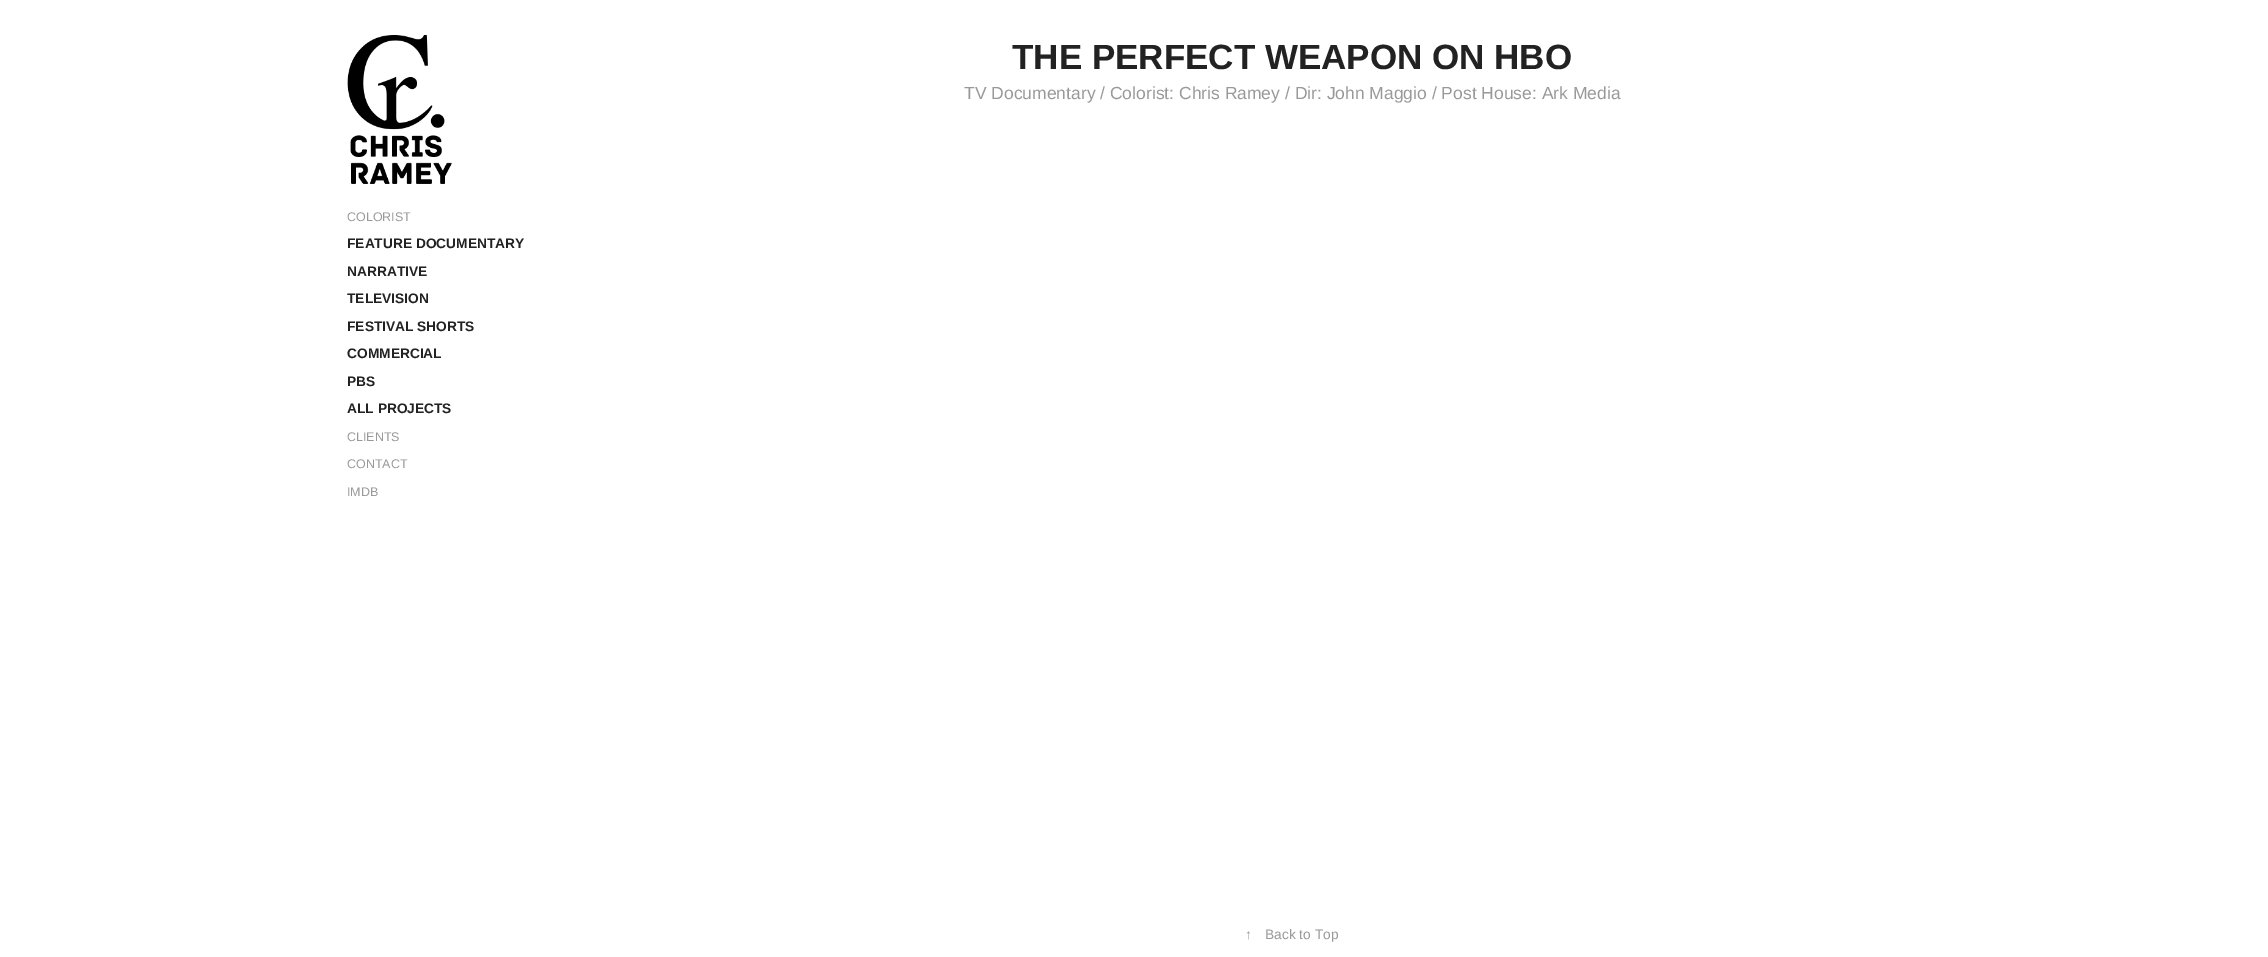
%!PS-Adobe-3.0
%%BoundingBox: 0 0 2268 957
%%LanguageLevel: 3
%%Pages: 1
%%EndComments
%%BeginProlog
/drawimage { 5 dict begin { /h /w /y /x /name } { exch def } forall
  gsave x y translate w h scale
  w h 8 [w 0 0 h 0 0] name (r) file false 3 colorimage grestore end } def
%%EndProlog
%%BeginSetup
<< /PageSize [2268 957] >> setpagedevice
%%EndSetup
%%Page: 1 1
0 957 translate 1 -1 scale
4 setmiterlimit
1 setgray
0 0 2268 957 rectfill
(images/1.raw) 347 35 105 149 drawimage
/LiberationSans-Regular [12.5 0 0 -12.5 0 0] selectfont
0.6 setgray
347 221 moveto (COLORIST) show
/LiberationSans-Bold [13.75 0 0 -13.75 0 0] selectfont
0.133 setgray
347 248 moveto (FEATURE DOCUMENTARY) show
347 276 moveto (NARRATIVE) show
347 303 moveto (TELEVISION) show
347 331 moveto (FESTIVAL SHORTS) show
347 358 moveto (COMMERCIAL) show
347 386 moveto (PBS) show
347 413 moveto (ALL PROJECTS) show
/LiberationSans-Regular [12.5 0 0 -12.5 0 0] selectfont
0.6 setgray
347 441 moveto (CLIENTS) show
347 468 moveto (CONTACT) show
347 496 moveto (IMDB) show
/LiberationSans-Bold [35 0 0 -35 0 0] selectfont
0.133 setgray
1012 69 moveto (THE PERFECT WEAPON ON HBO) show
/LiberationSans-Regular [17.5 0 0 -17.5 0 0] selectfont
0.6 setgray
964 99 moveto (TV Documentary / Colorist: Chris Ramey / Dir: John Maggio / Post House: Ark Media) show
/LiberationSans-Regular [13.75 0 0 -13.75 0 0] selectfont
1245 939 moveto (↑) show
1265 939 moveto (Back to Top) show
showpage
%%EOF
